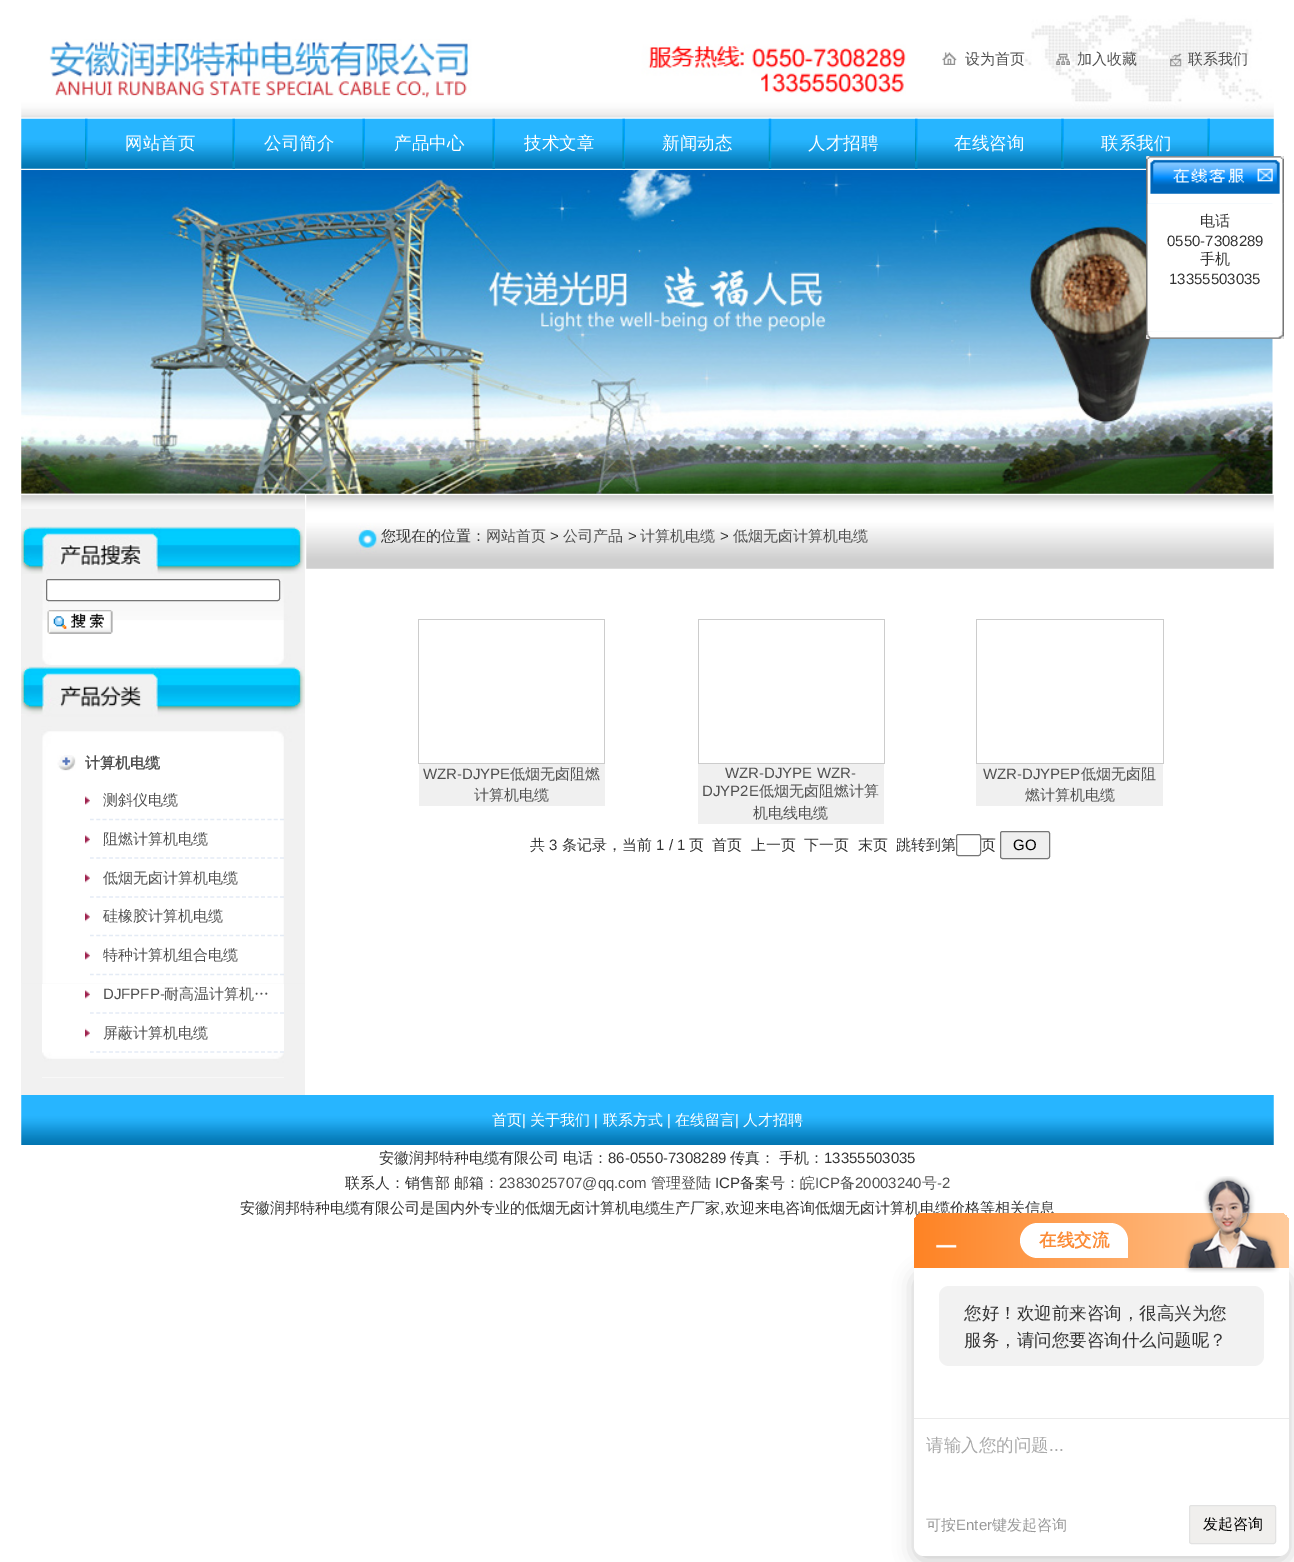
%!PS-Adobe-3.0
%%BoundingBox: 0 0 1294 1562
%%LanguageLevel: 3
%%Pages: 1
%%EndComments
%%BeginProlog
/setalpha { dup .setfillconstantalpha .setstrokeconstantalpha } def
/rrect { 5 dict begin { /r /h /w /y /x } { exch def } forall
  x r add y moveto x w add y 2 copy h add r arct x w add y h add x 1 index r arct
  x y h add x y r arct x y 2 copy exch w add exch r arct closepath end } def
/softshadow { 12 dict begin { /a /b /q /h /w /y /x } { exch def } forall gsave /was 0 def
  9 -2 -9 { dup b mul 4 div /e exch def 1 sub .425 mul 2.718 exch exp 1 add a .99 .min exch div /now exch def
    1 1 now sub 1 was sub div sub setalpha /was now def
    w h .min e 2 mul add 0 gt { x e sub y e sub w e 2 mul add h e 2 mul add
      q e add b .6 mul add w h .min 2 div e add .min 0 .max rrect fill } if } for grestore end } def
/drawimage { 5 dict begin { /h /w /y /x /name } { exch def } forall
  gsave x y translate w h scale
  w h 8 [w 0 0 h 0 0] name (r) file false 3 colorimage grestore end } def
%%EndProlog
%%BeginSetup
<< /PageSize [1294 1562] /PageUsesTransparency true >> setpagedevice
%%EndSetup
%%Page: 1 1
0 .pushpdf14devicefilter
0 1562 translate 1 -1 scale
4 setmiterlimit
1 setgray
0 0 1294 1562 rectfill
(images/1.raw) 21 15 1253 103 drawimage
(images/2.raw) 49 39 857 61 drawimage
(images/3.raw) 942 52 15 13 drawimage
(images/4.raw) 1056 53 14 12 drawimage
(images/5.raw) 1170 53 12 14 drawimage
(images/6.raw) 21 118 1253 51 drawimage
(images/7.raw) 85 118 3 51 drawimage
(images/8.raw) 232 118 3 51 drawimage
(images/8.raw) 362 118 3 51 drawimage
(images/8.raw) 492 118 3 51 drawimage
(images/8.raw) 622 118 3 51 drawimage
(images/9.raw) 768 118 4 51 drawimage
(images/7.raw) 915 118 3 51 drawimage
(images/10.raw) 1061 118 3 51 drawimage
(images/11.raw) 1207 118 3 39 drawimage
(images/12.raw) 21 170 1252 324 drawimage
(images/13.raw) 1146 156 138 48 drawimage
(images/15.raw) 1146 203 138 129 drawimage
(images/14.raw) 1146 156 138 48 drawimage
(images/16.raw) 1146 331 138 8 drawimage
(images/17.raw) 1146 331 138 8 drawimage
(images/18.raw) 306 495 968 74 drawimage
0.8 setgray
418 619 187 1 rectfill
604 619 1 145 rectfill
418 763 187 1 rectfill
418 619 1 145 rectfill
0.941 setgray
419 764 186 42 rectfill
0.8 setgray
698 619 187 1 rectfill
884 619 1 145 rectfill
698 763 187 1 rectfill
698 619 1 145 rectfill
0.941 setgray
698 764 186 60 rectfill
0.8 setgray
976 619 188 1 rectfill
1163 619 1 145 rectfill
976 763 188 1 rectfill
976 619 1 145 rectfill
0.941 setgray
976 764 187 42 rectfill
0.463 setgray
956.5 834.5 24 21 2 rrect stroke
0.937 setgray
1000.5 831.5 49 27 2 rrect gsave fill grestore
0.463 setgray
stroke
0.945 setgray
21 494 284 601 rectfill
(images/19.raw) 21 493 284 16 drawimage
(images/20.raw) 21 526 283 139 drawimage
1 setgray
46.5 579.5 233 21 2 rrect gsave fill grestore
0.463 setgray
stroke
(images/21.raw) 47 610 66 24 drawimage
(images/22.raw) 21 666 284 318 drawimage
1 setgray
42 984 242 94 rectfill
(images/23.raw) 57 755 19 16 drawimage
(images/24.raw) 85 796 5 9 drawimage
0.894 0.922 0.961 setrgbcolor
1.2 setlinewidth
[3.75 2.59] 0 setdash
newpath 90 819.5 moveto 284 819.5 lineto stroke
(images/25.raw) 85 835 5 9 drawimage
newpath 90 858 moveto 284 858 lineto stroke
(images/26.raw) 85 873 5 10 drawimage
newpath 90 897 moveto 284 897 lineto stroke
(images/27.raw) 85 912 5 10 drawimage
newpath 90 935.5 moveto 284 935.5 lineto stroke
(images/24.raw) 85 951 5 9 drawimage
newpath 90 974.5 moveto 284 974.5 lineto stroke
(images/25.raw) 85 990 5 9 drawimage
newpath 90 1013 moveto 284 1013 lineto stroke
(images/26.raw) 85 1028 5 10 drawimage
(images/28.raw) 42 1052 242 26 drawimage
newpath 90 1052 moveto 284 1052 lineto stroke
(images/29.raw) 21 1095 1253 50 drawimage
0 setgray
914 1273 375 288 10 10 0.2 softshadow
1 setgray
newpath 914 1268 moveto 1289 1268 lineto 1289 1546 lineto 1289 1551.5 1284.5 1556 1279 1556 curveto 924 1556 lineto 918.5 1556 914 1551.5 914 1546 curveto closepath fill
0.949 setgray
939 1286 325 80 10 rrect fill
0.918 setgray
914 1418 375 1 rectfill
0.941 0.937 0.929 setrgbcolor
1189.5 1505.5 86 38 2 rrect gsave fill grestore
0.886 setgray
1 setlinewidth
[] 0 setdash
stroke
/WenQuanYiZenHei-Medium [15 0 0 -15 0 0] selectfont
0.314 setgray
965 64 moveto (设为首页) show
1077 64 moveto (加入收藏) show
1188 64 moveto (联系我们) show
/WenQuanYiZenHei-Medium [17.5 0 0 -17.5 0 0] selectfont
1 setgray
125 149 moveto (网站首页) show
264 149 moveto (公司简介) show
394 149 moveto (产品中心) show
524 149 moveto (技术文章) show
662 149 moveto (新闻动态) show
808 149 moveto (人才招聘) show
954 149 moveto (在线咨询) show
1101 149 moveto (联系我们) show
/WenQuanYiZenHei-Medium [15 0 0 -15 0 0] selectfont
0.2 setgray
1200 226 moveto (电话) show
/LiberationSans-Regular [15 0 0 -15 0 0] selectfont
1167 246 moveto (0550-7308289) show
/WenQuanYiZenHei-Medium [15 0 0 -15 0 0] selectfont
1200 264 moveto (手机) show
/LiberationSans-Regular [15 0 0 -15 0 0] selectfont
1169 284 moveto (13355503035) show
/WenQuanYiZenHei-Medium [15 0 0 -15 0 0] selectfont
381 541 moveto (您现在的位置：) show
0.314 setgray
486 541 moveto (网站首页) show
/LiberationSans-Regular [15 0 0 -15 0 0] selectfont
0.2 setgray
550 541 moveto (>) show
/WenQuanYiZenHei-Medium [15 0 0 -15 0 0] selectfont
0.314 setgray
563 541 moveto (公司产品) show
/LiberationSans-Regular [15 0 0 -15 0 0] selectfont
0.2 setgray
628 541 moveto (>) show
/WenQuanYiZenHei-Medium [15 0 0 -15 0 0] selectfont
0.314 setgray
640 541 moveto (计算机电缆) show
/LiberationSans-Regular [15 0 0 -15 0 0] selectfont
0.2 setgray
720 541 moveto (>) show
/WenQuanYiZenHei-Medium [15 0 0 -15 0 0] selectfont
0.314 setgray
733 541 moveto (低烟无卤计算机电缆) show
/LiberationSans-Regular [15 0 0 -15 0 0] selectfont
423 779 moveto (WZR-DJYPE) show
/WenQuanYiZenHei-Medium [15 0 0 -15 0 0] selectfont
510 779 moveto (低烟无卤阻燃) show
474 800 moveto (计算机电缆) show
/LiberationSans-Regular [15 0 0 -15 0 0] selectfont
725 778 moveto (WZR-DJYPE WZR-) show
702 796 moveto (DJYP2E) show
/WenQuanYiZenHei-Medium [15 0 0 -15 0 0] selectfont
759 796 moveto (低烟无卤阻燃计算) show
753 818 moveto (机电线电缆) show
/LiberationSans-Regular [15 0 0 -15 0 0] selectfont
983 779 moveto (WZR-DJYPEP) show
/WenQuanYiZenHei-Medium [15 0 0 -15 0 0] selectfont
1081 779 moveto (低烟无卤阻) show
1025 800 moveto (燃计算机电缆) show
0.2 setgray
530 850 moveto (共) show
/LiberationSans-Regular [15 0 0 -15 0 0] selectfont
549 850 moveto (3) show
/WenQuanYiZenHei-Medium [15 0 0 -15 0 0] selectfont
562 850 moveto (条记录，当前) show
/LiberationSans-Regular [15 0 0 -15 0 0] selectfont
656 850 moveto (1 / 1) show
/WenQuanYiZenHei-Medium [15 0 0 -15 0 0] selectfont
689 850 moveto (页) show
712 850 moveto (首页) show
751 850 moveto (上一页) show
804 850 moveto (下一页) show
858 850 moveto (末页) show
896 850 moveto (跳转到第) show
981 850 moveto (页) show
/LiberationSans-Regular [15 0 0 -15 0 0] selectfont
0 setgray
1013 850 moveto (GO) show
/WenQuanYiZenHei-Bold [15 0 0 -15 0 0] selectfont
0.314 setgray
85 768 moveto (计算机电缆) show
/WenQuanYiZenHei-Medium [15 0 0 -15 0 0] selectfont
103 805 moveto (测斜仪电缆) show
103 844 moveto (阻燃计算机电缆) show
103 883 moveto (低烟无卤计算机电缆) show
103 921 moveto (硅橡胶计算机电缆) show
103 960 moveto (特种计算机组合电缆) show
/LiberationSans-Regular [15 0 0 -15 0 0] selectfont
103 999 moveto (DJFPFP-) show
/WenQuanYiZenHei-Medium [15 0 0 -15 0 0] selectfont
164 999 moveto (耐高温计算机…) show
103 1038 moveto (屏蔽计算机电缆) show
1 setgray
492 1125 moveto (首页) show
/LiberationSans-Regular [15 0 0 -15 0 0] selectfont
522 1125 moveto (|) show
/WenQuanYiZenHei-Medium [15 0 0 -15 0 0] selectfont
530 1125 moveto (关于我们) show
/LiberationSans-Regular [15 0 0 -15 0 0] selectfont
594 1125 moveto (|) show
/WenQuanYiZenHei-Medium [15 0 0 -15 0 0] selectfont
603 1125 moveto (联系方式) show
/LiberationSans-Regular [15 0 0 -15 0 0] selectfont
667 1125 moveto (|) show
/WenQuanYiZenHei-Medium [15 0 0 -15 0 0] selectfont
675 1125 moveto (在线留言) show
/LiberationSans-Regular [15 0 0 -15 0 0] selectfont
735 1125 moveto (|) show
/WenQuanYiZenHei-Medium [15 0 0 -15 0 0] selectfont
743 1125 moveto (人才招聘) show
0.2 setgray
379 1163 moveto (安徽润邦特种电缆有限公司 电话：) show
/LiberationSans-Regular [15 0 0 -15 0 0] selectfont
608 1163 moveto (86-0550-7308289) show
/WenQuanYiZenHei-Medium [15 0 0 -15 0 0] selectfont
730 1163 moveto (传真： 手机：) show
/LiberationSans-Regular [15 0 0 -15 0 0] selectfont
824 1163 moveto (13355503035) show
/WenQuanYiZenHei-Medium [15 0 0 -15 0 0] selectfont
345 1188 moveto (联系人：销售部 邮箱：) show
/LiberationSans-Regular [15 0 0 -15 0 0] selectfont
0.314 setgray
499 1188 moveto (2383025707@qq.com) show
/WenQuanYiZenHei-Medium [15 0 0 -15 0 0] selectfont
651 1188 moveto (管理登陆) show
/LiberationSans-Regular [15 0 0 -15 0 0] selectfont
0.2 setgray
715 1188 moveto (ICP) show
/WenQuanYiZenHei-Medium [15 0 0 -15 0 0] selectfont
740 1188 moveto (备案号：) show
0.314 setgray
800 1188 moveto (皖) show
/LiberationSans-Regular [15 0 0 -15 0 0] selectfont
815 1188 moveto (ICP) show
/WenQuanYiZenHei-Medium [15 0 0 -15 0 0] selectfont
840 1188 moveto (备) show
/LiberationSans-Regular [15 0 0 -15 0 0] selectfont
855 1188 moveto (20003240) show
/WenQuanYiZenHei-Medium [15 0 0 -15 0 0] selectfont
922 1188 moveto (号) show
/LiberationSans-Regular [15 0 0 -15 0 0] selectfont
937 1188 moveto (-2) show
/WenQuanYiZenHei-Medium [15 0 0 -15 0 0] selectfont
0.2 setgray
240 1213 moveto (安徽润邦特种电缆有限公司是国内外专业的低烟无卤计算机电缆生产厂家) show
/LiberationSans-Regular [15 0 0 -15 0 0] selectfont
720 1213 moveto (,) show
/WenQuanYiZenHei-Medium [15 0 0 -15 0 0] selectfont
725 1213 moveto (欢迎来电咨询低烟无卤计算机电缆价格等相关信息) show
gsave newpath 924 1213 moveto 1279 1213 lineto 1284.5 1213 1289 1217.5 1289 1223 curveto 1289 1268 lineto 914 1268 lineto 914 1223 lineto 914 1217.5 918.5 1213 924 1213 curveto closepath clip newpath
<< /ShadingType 2 /ColorSpace /DeviceRGB /Coords [914 1240 1289 1240] /Extend [true true] /Function << /FunctionType 2 /Domain [0 1] /C0 [1 0.514 0.141] /C1 [0.996 0.796 0.612] /N 1 >> >> shfill grestore
(images/30.raw) 936 1244 21 4 drawimage
1 setgray
newpath 1037.5 1223 moveto 1110.5 1223 lineto 1120 1223 1128 1231 1128 1240.5 curveto 1128 1258 lineto 1037.5 1258 lineto 1028 1258 1020 1250 1020 1240.5 curveto 1020 1231 1028 1223 1037.5 1223 curveto closepath fill
/WenQuanYiZenHei-Bold [17.5 0 0 -17.5 0 0] selectfont
0.984 0.545 0.212 setrgbcolor
1039 1246 moveto (在线交流) show
(images/31.raw) 1184 1176 95 97 drawimage
/WenQuanYiZenHei-Medium [17.5 0 0 -17.5 0 0] selectfont
0.2 setgray
964 1319 moveto (您好！欢迎前来咨询，很高兴为您) show
964 1346 moveto (服务，请问您要咨询什么问题呢？) show
0.667 setgray
926 1451 moveto (请输入您的问题) show
/LiberationSans-Regular [17.5 0 0 -17.5 0 0] selectfont
1049 1451 moveto (...) show
/WenQuanYiZenHei-Medium [15 0 0 -15 0 0] selectfont
0.6 setgray
926 1530 moveto (可按) show
/LiberationSans-Regular [15 0 0 -15 0 0] selectfont
956 1530 moveto (Enter) show
/WenQuanYiZenHei-Medium [15 0 0 -15 0 0] selectfont
992 1530 moveto (键发起咨询) show
0 setgray
1203 1529 moveto (发起咨询) show
.poppdf14devicefilter showpage
%%EOF
